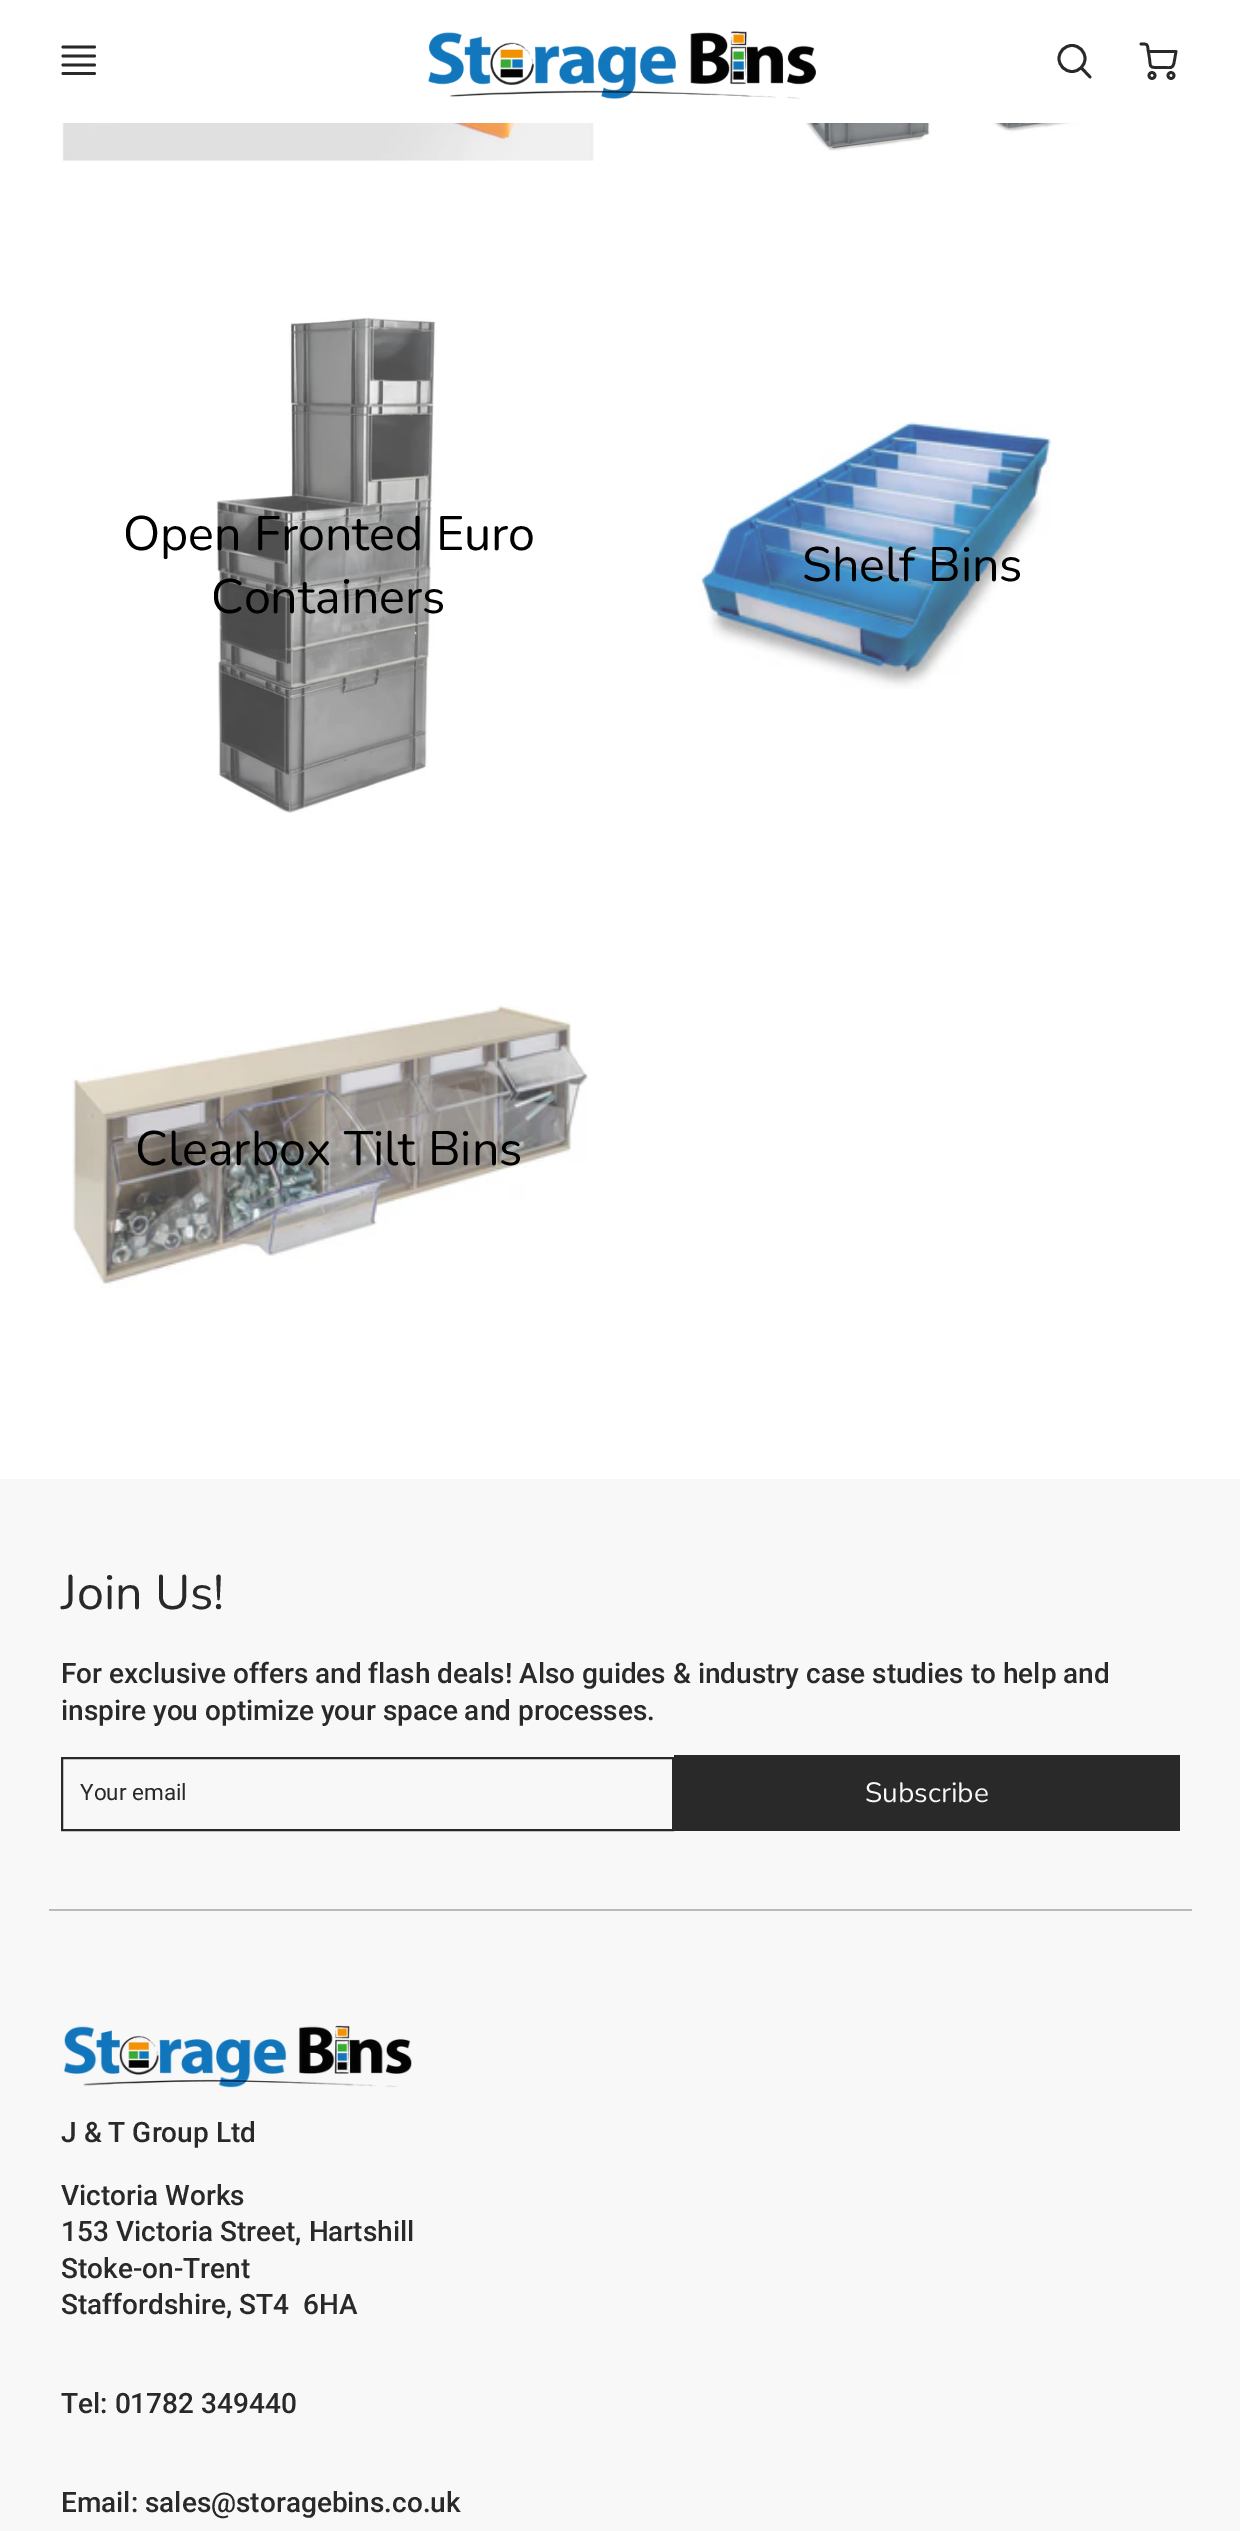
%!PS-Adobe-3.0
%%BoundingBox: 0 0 1240 2531
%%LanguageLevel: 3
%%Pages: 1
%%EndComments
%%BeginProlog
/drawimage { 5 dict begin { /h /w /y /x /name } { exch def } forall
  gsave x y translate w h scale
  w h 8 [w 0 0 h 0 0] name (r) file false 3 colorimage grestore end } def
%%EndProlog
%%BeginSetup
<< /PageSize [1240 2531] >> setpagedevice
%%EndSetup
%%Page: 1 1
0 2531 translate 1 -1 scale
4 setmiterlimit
0.973 setgray
0 0 1240 2531 rectfill
1 setgray
0 0 1240 1479 rectfill
0.161 setgray
2.8 setlinewidth
1 setlinecap
1 setlinejoin
newpath 94.5 65 moveto 63 65 lineto 94.5 73.5 moveto 63 73.5 lineto 94.5 47 moveto 63 47 lineto 94.5 56 moveto 63 56 lineto stroke
(images/1.raw) 428 31 388 68 drawimage
0 setlinecap
0 setlinejoin
newpath 1072 58.5 13 0 360 arc closepath stroke
1 setlinecap
1 setlinejoin
newpath 1090 77 moveto 1081.5 68 lineto stroke
2.7 setlinewidth
0 setlinecap
0 setlinejoin
newpath 1152 75.5 3 0 360 arc closepath stroke
newpath 1171 75.5 3 0 360 arc closepath stroke
1 setlinecap
1 setlinejoin
newpath 1148.5 51.5 moveto 1176 51.5 lineto 1174 63 lineto 1172.5 69 1170.5 67.5 1164.5 67.5 curveto 1156 67.5 lineto 1149 67.5 1150.5 66 1149.5 58.5 curveto 1148 49.5 lineto 1147.5 43.5 1147 44 1141 44 curveto stroke
(images/2.raw) 62 123 532 38 drawimage
(images/3.raw) 725 123 418 28 drawimage
(images/4.raw) 216 317 221 496 drawimage
(images/5.raw) 697 421 355 268 drawimage
(images/6.raw) 72 1004 518 285 drawimage
2 setlinewidth
0 setlinecap
0 setlinejoin
62 1758 611 72 rectstroke
674 1755 506 76 rectfill
0.729 setgray
49 1909 1143 2 rectfill
(images/7.raw) 63 2025 349 63 drawimage
/Nunito-Regular [48.4 0 0 -48.4 0 0] selectfont
0 setgray
123 550 moveto (Open Fronted Euro) show
211 613 moveto (Containers) show
802 581 moveto (Shelf Bins) show
135 1165 moveto (Clearbox Tilt Bins) show
0.161 setgray
61 1609 moveto (Join Us!) show
/Roboto-Medium [28 0 0 -28 0 0] selectfont
61 1683 moveto (For exclusive offers and flash deals! Also guides & industry case studies to help and) show
61 1720 moveto (inspire you optimize your space and processes.) show
/Roboto-Regular [22.5 0 0 -22.5 0 0] selectfont
80 1800 moveto (Your email) show
/Nunito-Regular [28 0 0 -28 0 0] selectfont
0.973 setgray
865 1802 moveto (Subscribe) show
/Roboto-Medium [28 0 0 -28 0 0] selectfont
0.161 setgray
61 2142 moveto (J & T Group Ltd) show
61 2205 moveto (Victoria Works) show
61 2241 moveto (153 Victoria Street, Hartshill) show
61 2278 moveto (Stoke-on-Trent) show
61 2314 moveto (Staffordshire, ST4  6HA) show
61 2413 moveto (Tel: 01782 349440) show
61 2512 moveto (Email: sales@storagebins.co.uk) show
showpage
%%EOF
